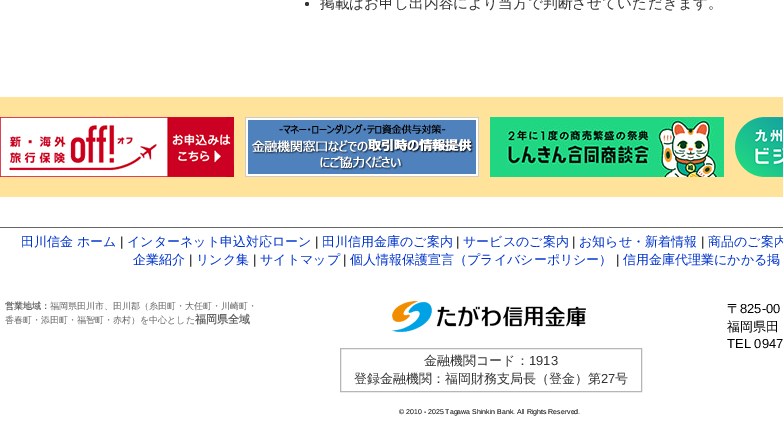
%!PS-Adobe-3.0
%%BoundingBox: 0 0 783 446
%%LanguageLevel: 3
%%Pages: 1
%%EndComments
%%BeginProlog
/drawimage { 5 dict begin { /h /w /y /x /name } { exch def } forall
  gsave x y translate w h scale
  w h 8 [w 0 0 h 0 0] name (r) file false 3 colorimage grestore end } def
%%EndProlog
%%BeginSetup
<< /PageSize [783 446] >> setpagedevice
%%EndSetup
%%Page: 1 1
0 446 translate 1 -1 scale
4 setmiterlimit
1 setgray
0 0 783 446 rectfill
0.2 setgray
newpath 307 4 2 0 360 arc closepath fill
1 0.89 0.604 setrgbcolor
0 97 783 100 rectfill
(images/1.raw) 0 117 234 60 drawimage
(images/2.raw) 245 117 234 60 drawimage
(images/3.raw) 490 117 234 60 drawimage
(images/4.raw) 735 117 48 60 drawimage
0.4 setgray
0 227 783 1 rectfill
(images/5.raw) 392 301 194 31 drawimage
0.714 setgray
340.5 348.5 301 43 rectstroke
/WenQuanYiZenHei-Medium [14.7 0 0 -14.7 0 0] selectfont
0.2 setgray
320 8 moveto (掲載はお申し出内容により当方で判断させていただきます。) show
/WenQuanYiZenHei-Medium [13 0 0 -13 0 0] selectfont
0 0.2 0.8 setrgbcolor
21 246 moveto (田川信金 ホーム) show
/LiberationSans-Regular [13 0 0 -13 0 0] selectfont
0 setgray
120 246 moveto (|) show
/WenQuanYiZenHei-Medium [13 0 0 -13 0 0] selectfont
0 0.2 0.8 setrgbcolor
127 246 moveto (インターネット申込対応ローン) show
/LiberationSans-Regular [13 0 0 -13 0 0] selectfont
0 setgray
315 246 moveto (|) show
/WenQuanYiZenHei-Medium [13 0 0 -13 0 0] selectfont
0 0.2 0.8 setrgbcolor
322 246 moveto (田川信用金庫のご案内) show
/LiberationSans-Regular [13 0 0 -13 0 0] selectfont
0 setgray
456 246 moveto (|) show
/WenQuanYiZenHei-Medium [13 0 0 -13 0 0] selectfont
0 0.2 0.8 setrgbcolor
463 246 moveto (サービスのご案内) show
/LiberationSans-Regular [13 0 0 -13 0 0] selectfont
0 setgray
572 246 moveto (|) show
/WenQuanYiZenHei-Medium [13 0 0 -13 0 0] selectfont
0 0.2 0.8 setrgbcolor
579 246 moveto (お知らせ・新着情報) show
/LiberationSans-Regular [13 0 0 -13 0 0] selectfont
0 setgray
701 246 moveto (|) show
/WenQuanYiZenHei-Medium [13 0 0 -13 0 0] selectfont
0 0.2 0.8 setrgbcolor
708 246 moveto (商品のご案内) show
133 264 moveto (企業紹介) show
/LiberationSans-Regular [13 0 0 -13 0 0] selectfont
0 setgray
189 264 moveto (|) show
/WenQuanYiZenHei-Medium [13 0 0 -13 0 0] selectfont
0 0.2 0.8 setrgbcolor
196 264 moveto (リンク集) show
/LiberationSans-Regular [13 0 0 -13 0 0] selectfont
0 setgray
253 264 moveto (|) show
/WenQuanYiZenHei-Medium [13 0 0 -13 0 0] selectfont
0 0.2 0.8 setrgbcolor
260 264 moveto (サイトマップ) show
/LiberationSans-Regular [13 0 0 -13 0 0] selectfont
0 setgray
343 264 moveto (|) show
/WenQuanYiZenHei-Medium [13 0 0 -13 0 0] selectfont
0 0.2 0.8 setrgbcolor
350 264 moveto (個人情報保護宣言（プライバシーポリシー）) show
/LiberationSans-Regular [13 0 0 -13 0 0] selectfont
0 setgray
616 264 moveto (|) show
/WenQuanYiZenHei-Medium [13 0 0 -13 0 0] selectfont
0 0.2 0.8 setrgbcolor
623 264 moveto (信用金庫代理業にかかる掲) show
/WenQuanYiZenHei-Bold [9 0 0 -9 0 0] selectfont
0.4 setgray
5 309 moveto (営業地域：) show
/WenQuanYiZenHei-Medium [9 0 0 -9 0 0] selectfont
50 309 moveto (福岡県田川市、田川郡（糸田町・大任町・川崎町・) show
5 323 moveto (香春町・添田町・福智町・赤村）を中心とした) show
/WenQuanYiZenHei-Bold [11 0 0 -11 0 0] selectfont
195 323 moveto (福岡県全域) show
/WenQuanYiZenHei-Medium [13 0 0 -13 0 0] selectfont
0 setgray
727 313 moveto (〒) show
/LiberationSans-Regular [13 0 0 -13 0 0] selectfont
740 313 moveto (825-00) show
/WenQuanYiZenHei-Medium [13 0 0 -13 0 0] selectfont
727 331 moveto (福岡県田) show
/LiberationSans-Regular [13 0 0 -13 0 0] selectfont
727 348 moveto (TEL 0947) show
/WenQuanYiZenHei-Medium [13 0 0 -13 0 0] selectfont
0.2 setgray
424 365 moveto (金融機関コード：) show
/LiberationSans-Regular [13 0 0 -13 0 0] selectfont
529 365 moveto (1913) show
/WenQuanYiZenHei-Medium [13 0 0 -13 0 0] selectfont
354 383 moveto (登録金融機関：福岡財務支局長（登金）第) show
/LiberationSans-Regular [13 0 0 -13 0 0] selectfont
601 383 moveto (27) show
/WenQuanYiZenHei-Medium [13 0 0 -13 0 0] selectfont
615 383 moveto (号) show
/LiberationSans-Regular [7 0 0 -7 0 0] selectfont
0 setgray
399 414 moveto (© 2010 - 2025 Tagawa Shinkin Bank. All Rights Reserved.) show
showpage
%%EOF
